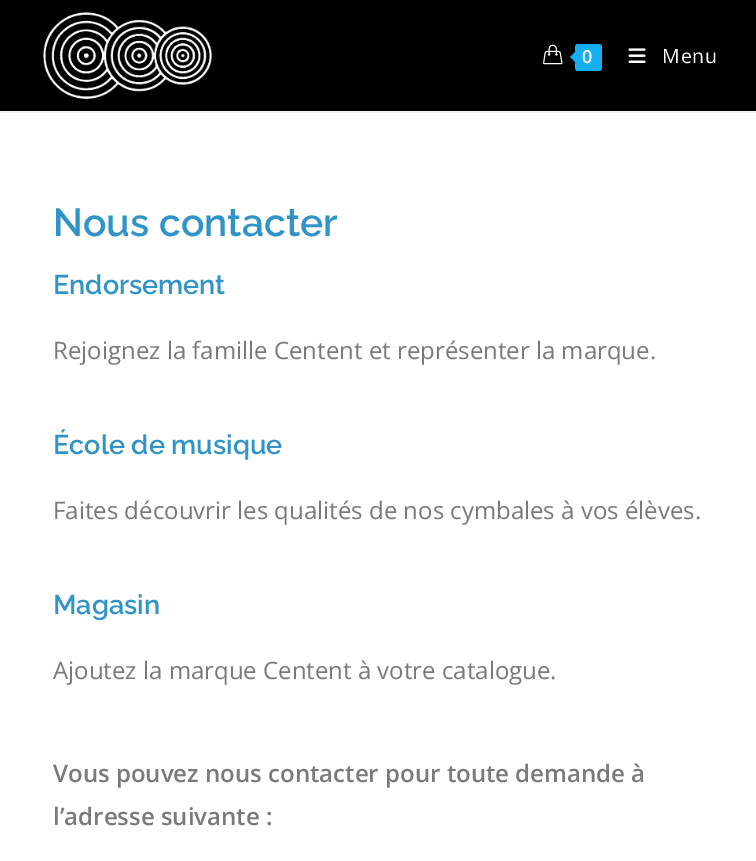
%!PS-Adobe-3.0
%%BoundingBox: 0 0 756 861
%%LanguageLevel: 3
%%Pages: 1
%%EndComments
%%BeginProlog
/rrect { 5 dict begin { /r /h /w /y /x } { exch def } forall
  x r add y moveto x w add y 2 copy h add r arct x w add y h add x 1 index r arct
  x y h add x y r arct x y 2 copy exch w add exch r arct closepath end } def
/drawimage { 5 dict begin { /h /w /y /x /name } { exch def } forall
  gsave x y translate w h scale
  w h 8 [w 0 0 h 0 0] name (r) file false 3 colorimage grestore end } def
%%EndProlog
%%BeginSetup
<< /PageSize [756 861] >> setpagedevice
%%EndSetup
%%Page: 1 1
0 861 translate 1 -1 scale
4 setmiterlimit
1 setgray
0 0 756 861 rectfill
0 setgray
0 0 756 111 rectfill
0.945 setgray
0 111 756 2 rectfill
(images/1.raw) 43 12 169 88 drawimage
(images/2.raw) 543 44 20 21 drawimage
0.075 0.686 0.941 setrgbcolor
575 44 27 27 3 rrect fill
newpath 577.5 49.5 moveto 577.5 64.5 lineto 570 57 lineto closepath fill
(images/3.raw) 628 48 18 15 drawimage
/OpenSans-SemiBold [18 0 0 -18 0 0] selectfont
1 setgray
582 63 moveto 1 0 (0) ashow
/OpenSans-Regular [19.5 0 0 -19.5 0 0] selectfont
662 63 moveto 1 0 (Menu) ashow
/Raleway-SemiBold [39 0 0 -39 0 0] selectfont
0.192 0.58 0.784 setrgbcolor
53 236 moveto (Nous contacter) show
/Raleway-SemiBold [27 0 0 -27 0 0] selectfont
53 294 moveto (Endorsement) show
/OpenSans-Regular [24 0 0 -24 0 0] selectfont
0.478 setgray
53 359 moveto (Rejoignez la famille Centent et représenter la marque.) show
/Raleway-SemiBold [27 0 0 -27 0 0] selectfont
0.192 0.58 0.784 setrgbcolor
53 454 moveto (École de musique) show
/OpenSans-Regular [24 0 0 -24 0 0] selectfont
0.478 setgray
53 519 moveto (Faites découvrir les qualités de nos cymbales à vos élèves.) show
/Raleway-SemiBold [27 0 0 -27 0 0] selectfont
0.192 0.58 0.784 setrgbcolor
53 614 moveto (Magasin) show
/OpenSans-Regular [24 0 0 -24 0 0] selectfont
0.478 setgray
53 679 moveto (Ajoutez la marque Centent à votre catalogue.) show
/OpenSans-SemiBold [24 0 0 -24 0 0] selectfont
53 782 moveto (Vous pouvez nous contacter pour toute demande à) show
53 825 moveto (l’adresse suivante :) show
showpage
%%EOF
